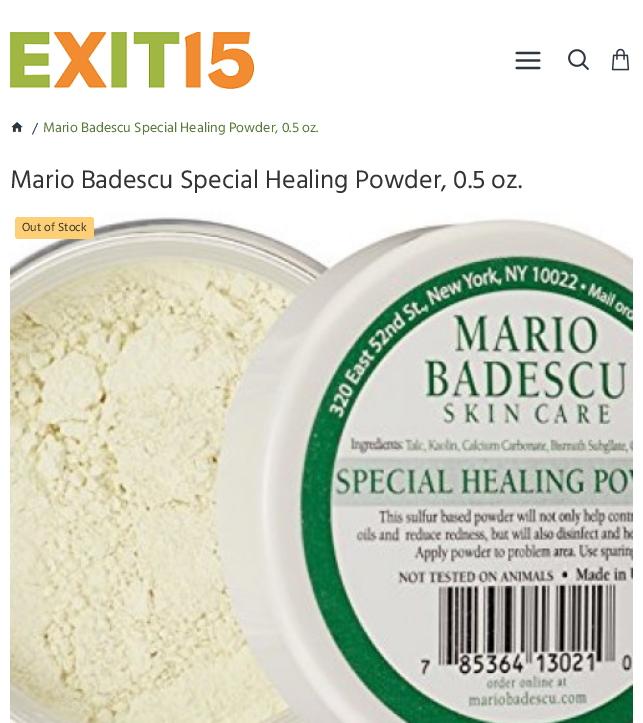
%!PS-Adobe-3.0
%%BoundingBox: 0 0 643 723
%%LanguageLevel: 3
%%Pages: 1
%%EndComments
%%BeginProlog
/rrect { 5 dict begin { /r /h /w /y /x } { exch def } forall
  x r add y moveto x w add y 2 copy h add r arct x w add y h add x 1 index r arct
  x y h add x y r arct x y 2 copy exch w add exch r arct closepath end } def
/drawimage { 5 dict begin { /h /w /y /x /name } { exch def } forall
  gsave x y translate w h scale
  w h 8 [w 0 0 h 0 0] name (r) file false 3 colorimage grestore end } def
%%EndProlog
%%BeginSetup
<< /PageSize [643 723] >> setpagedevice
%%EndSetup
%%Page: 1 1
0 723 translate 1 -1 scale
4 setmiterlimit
1 setgray
0 0 643 723 rectfill
(images/1.raw) 10 32 244 57 drawimage
(images/2.raw) 515 51 26 19 drawimage
(images/3.raw) 568 49 21 21 drawimage
(images/4.raw) 611 48 19 23 drawimage
(images/5.raw) 11 122 12 10 drawimage
(images/6.raw) 10 212 623 511 drawimage
0.996 0.816 0.459 setrgbcolor
15 217 79 22 3 rrect fill
/Hind-Regular [14 0 0 -14 0 0] selectfont
0.173 0.212 0.251 setrgbcolor
32 133 moveto (/) show
0.337 0.475 0.216 setrgbcolor
43 132 moveto (Mario Badescu Special Healing Powder, 0.5 oz.) show
/Hind-Regular [26 0 0 -26 0 0] selectfont
0.2 setgray
10 188 moveto (Mario Badescu Special Healing Powder, 0.5 oz.) show
/Hind-Regular [12 0 0 -12 0 0] selectfont
22 231 moveto (Out of Stock) show
showpage
%%EOF
